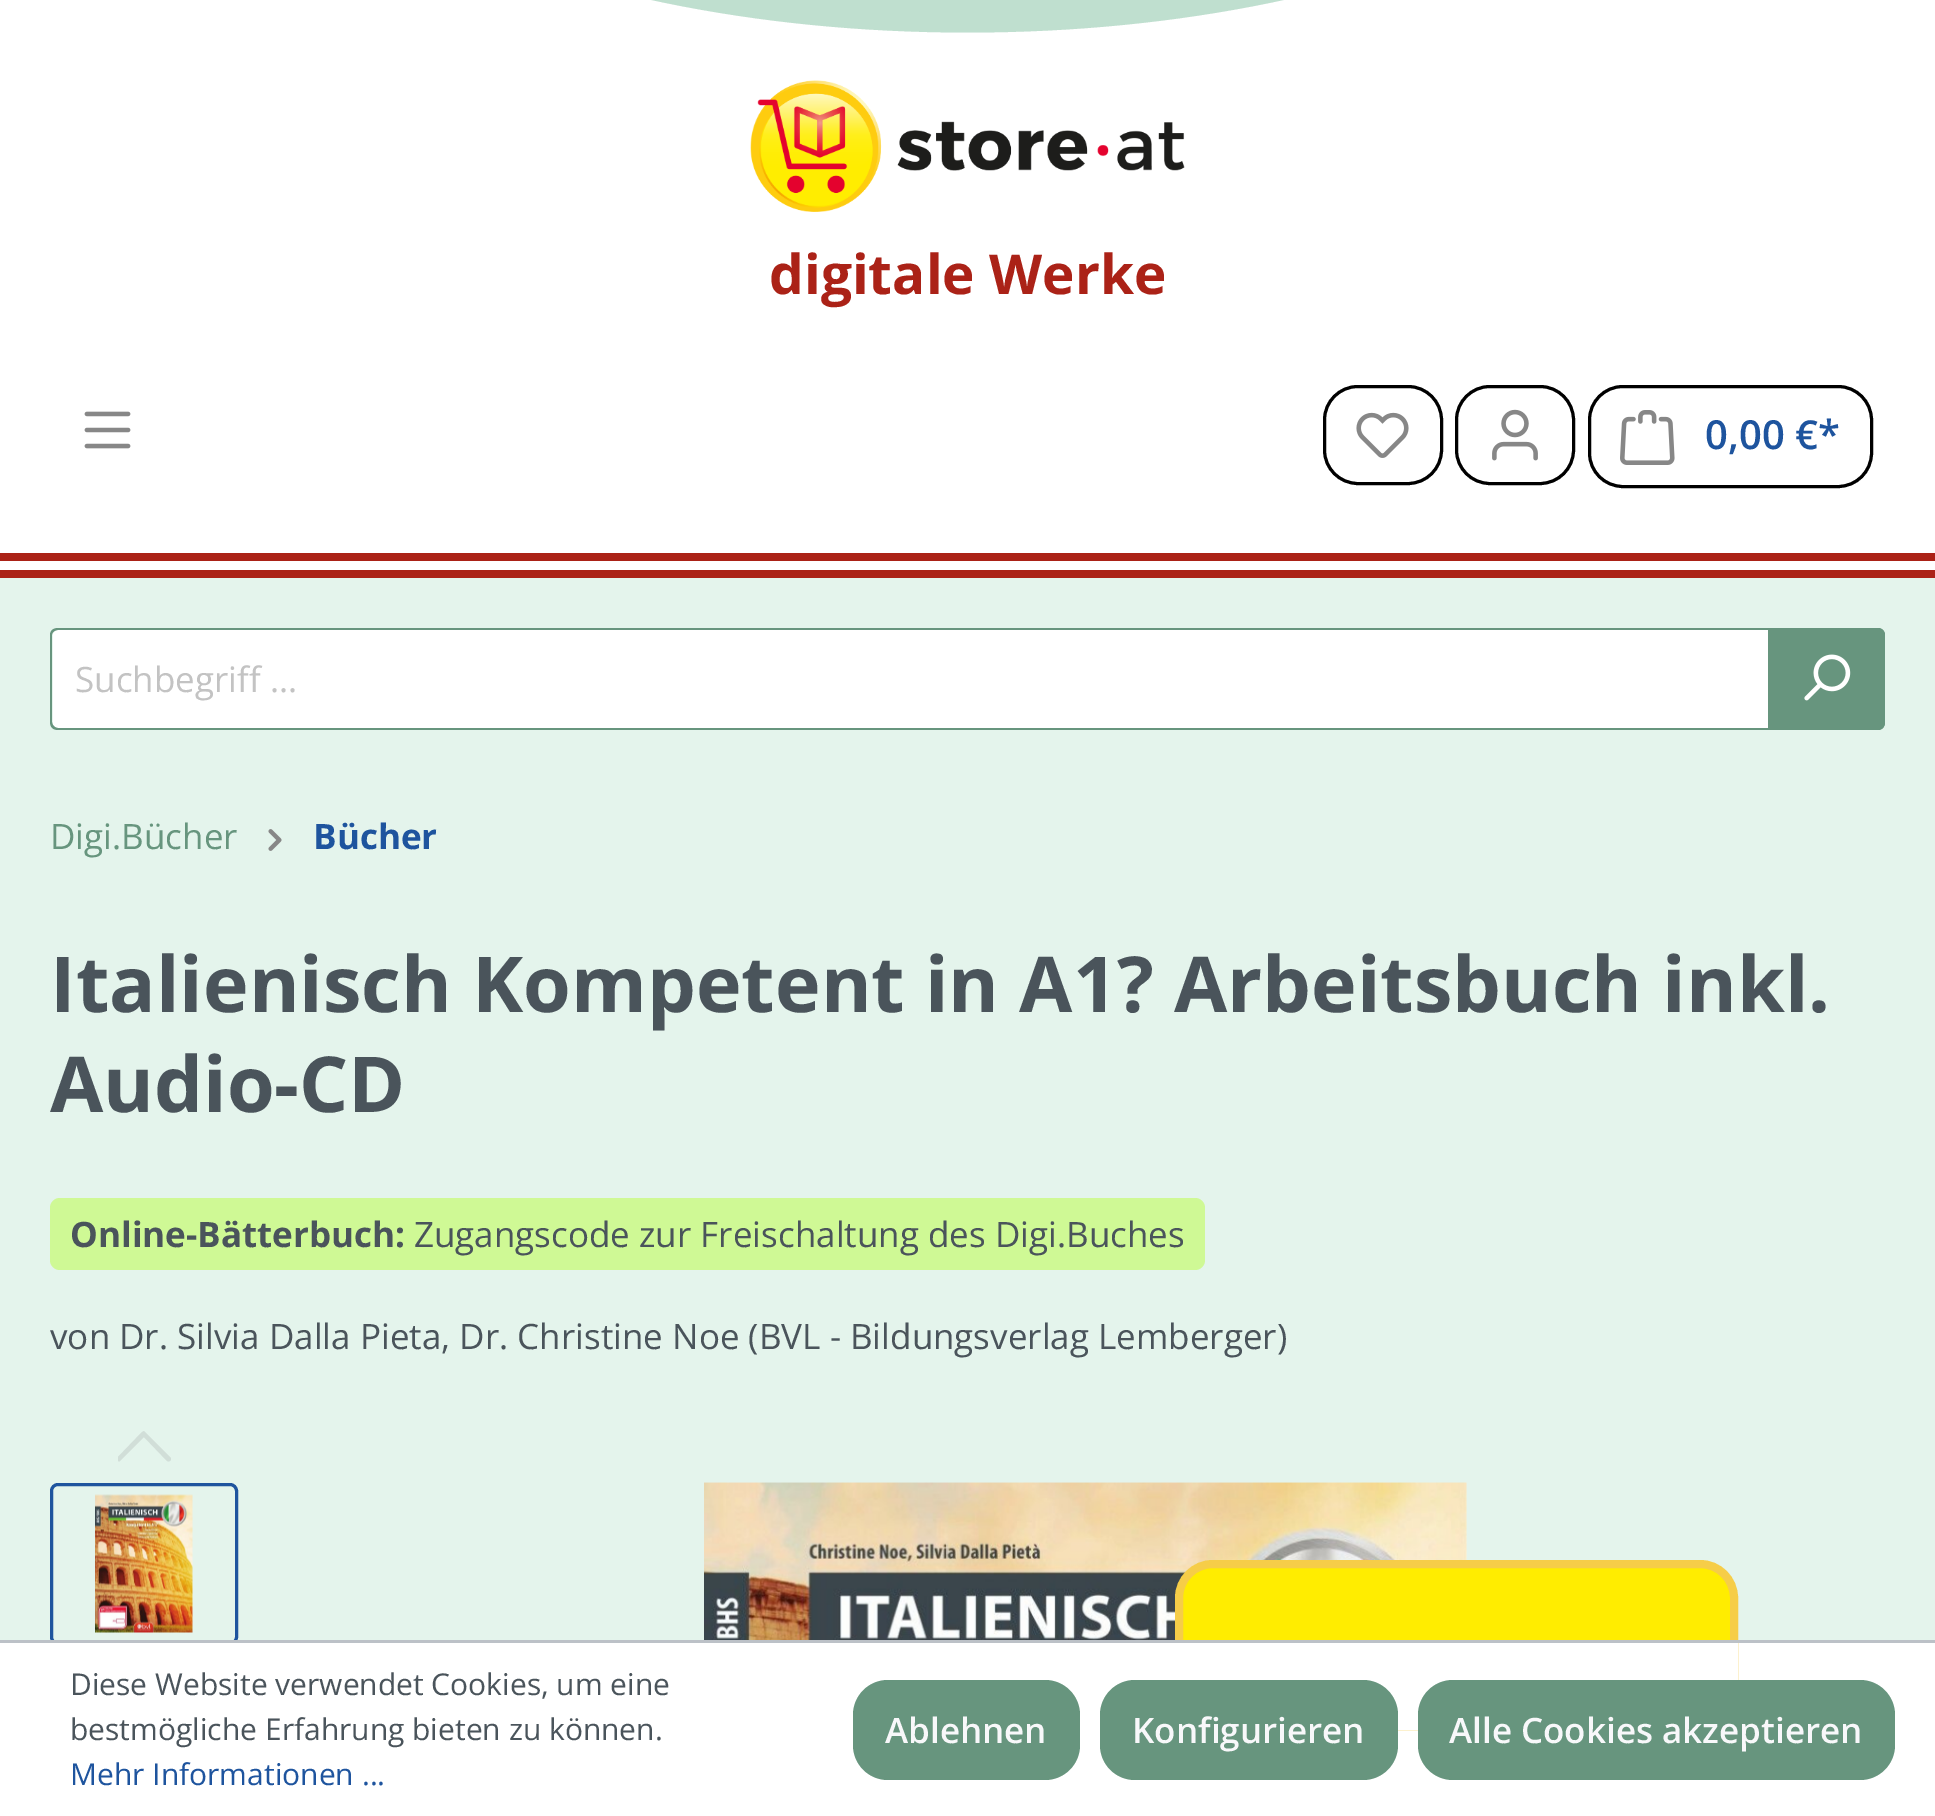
%!PS-Adobe-3.0
%%BoundingBox: 0 0 1935 1816
%%LanguageLevel: 3
%%Pages: 1
%%EndComments
%%BeginProlog
/rrect { 5 dict begin { /r /h /w /y /x } { exch def } forall
  x r add y moveto x w add y 2 copy h add r arct x w add y h add x 1 index r arct
  x y h add x y r arct x y 2 copy exch w add exch r arct closepath end } def
/drawimage { 5 dict begin { /h /w /y /x /name } { exch def } forall
  gsave x y translate w h scale
  w h 8 [w 0 0 h 0 0] name (r) file false 3 colorimage grestore end } def
%%EndProlog
%%BeginSetup
<< /PageSize [1935 1816] >> setpagedevice
%%EndSetup
%%Page: 1 1
0 1816 translate 1 -1 scale
4 setmiterlimit
1 setgray
0 0 1935 1816 rectfill
0.749 0.875 0.812 setrgbcolor
newpath 967.5 -717.5 moveto 1395.5 -717.5 1742.5 -549.5 1742.5 -342.5 curveto 1742.5 -135.5 1395.5 32.5 967.5 32.5 curveto 539.5 32.5 192.5 -135.5 192.5 -342.5 curveto 192.5 -549.5 539.5 -717.5 967.5 -717.5 curveto closepath fill
0.671 0.133 0.09 setrgbcolor
0 553 1935 8 rectfill
0 570 1935 8 rectfill
(images/1.raw) 750 80 435 132 drawimage
(images/2.raw) 84 411 47 38 drawimage
0 setgray
3 setlinewidth
1324.5 386.5 117 97 33.5 rrect stroke
(images/3.raw) 1356 412 53 46 drawimage
1456.5 386.5 117 97 33.5 rrect stroke
(images/4.raw) 1492 409 46 52 drawimage
1589.5 386.5 282 100 33.5 rrect stroke
(images/5.raw) 1620 410 55 55 drawimage
0.894 0.957 0.925 setrgbcolor
0 578 1935 1062 rectfill
1 setgray
newpath 58 630 moveto 1770 630 lineto 1770 728 lineto 58 728 lineto 55 728 53 726 53 723 curveto 53 635 lineto 53 632 55 630 58 630 curveto closepath fill
0.404 0.584 0.494 setrgbcolor
newpath 58 628 moveto 1770 628 lineto 1770 730 lineto 58 730 lineto 53 730 50 727 50 722 curveto 50 635 lineto 50 631 53 628 58 628 curveto closepath 58 630 moveto 1770 630 lineto 1770 728 lineto 58 728 lineto 55 728 52 725 52 722 curveto 52 635 lineto 52 632 55 630 58 630 curveto closepath eofill
newpath 1768 628 moveto 1877 628 lineto 1881.5 628 1885 631.5 1885 636 curveto 1885 722 lineto 1885 726.5 1881.5 730 1877 730 curveto 1768 730 lineto closepath fill
newpath 1768 628 moveto 1878 628 lineto 1882 628 1885 631 1885 635 curveto 1885 722 lineto 1885 727 1882 730 1878 730 curveto 1768 730 lineto closepath 1768 630 moveto 1878 630 lineto 1880 630 1882 632 1882 635 curveto 1882 722 lineto 1882 725 1880 728 1878 728 curveto 1768 728 lineto closepath eofill
(images/6.raw) 1804 654 47 47 drawimage
(images/7.raw) 268 829 14 22 drawimage
0.812 0.976 0.584 setrgbcolor
50 1198 1155 72 10 rrect fill
gsave
118 1420 55 55 rectclip
0.82 0.871 0.847 setrgbcolor
newpath 144 1437 moveto 167 1461 lineto 169 1462 171 1461 171 1459 curveto 171 1458 lineto 145 1432 lineto 144 1431 lineto 142 1432 lineto 117 1458 lineto 116 1459 lineto 117 1461 119 1462 120 1461 curveto closepath eofill
grestore
0.118 0.329 0.62 setrgbcolor
51.5 1484.5 185 159 6.5 rrect stroke
(images/8.raw) 95 1494 98 139 drawimage
(images/9.raw) 704 1482 763 158 drawimage
1 0.929 0 setrgbcolor
1179 1564 555 162 34 rrect gsave fill grestore
0.965 0.804 0.282 setrgbcolor
8 setlinewidth
stroke
1 setgray
52 1643 1686 87 rectfill
0.737 0.757 0.78 setrgbcolor
0 1640 1935 3 rectfill
0.404 0.584 0.494 setrgbcolor
853 1680 227 100 35 rrect fill
1100 1680 298 100 35 rrect fill
1418 1680 477 100 35 rrect fill
/OpenSans-Bold [55 0 0 -55 0 0] selectfont
0.671 0.133 0.09 setrgbcolor
769 294 moveto (digitale Werke) show
/OpenSans-SemiBold [40 0 0 -40 0 0] selectfont
0.118 0.329 0.62 setrgbcolor
1705 449 moveto (0,00 €*) show
/OpenSans-Regular [35 0 0 -35 0 0] selectfont
0.765 setgray
75 692 moveto (Suchbegriff ...) show
0.404 0.584 0.494 setrgbcolor
50 849 moveto (Digi.Bücher) show
/OpenSans-Bold [35 0 0 -35 0 0] selectfont
0.118 0.329 0.62 setrgbcolor
313 849 moveto (Bücher) show
/OpenSans-Bold [77.25 0 0 -77.25 0 0] selectfont
0.29 0.329 0.357 setrgbcolor
50 1012 moveto (Italienisch Kompetent in A1? Arbeitsbuch inkl.) show
50 1112 moveto (Audio-CD) show
/OpenSans-Bold [35 0 0 -35 0 0] selectfont
70 1247 moveto (Online-Bätterbuch:) show
/OpenSans-Regular [35 0 0 -35 0 0] selectfont
414 1247 moveto (Zugangscode zur Freischaltung des Digi.Buches) show
50 1349 moveto (von Dr. Silvia Dalla Pieta, Dr. Christine Noe \(BVL - Bildungsverlag Lemberger\)) show
/OpenSans-Regular [30 0 0 -30 0 0] selectfont
70 1695 moveto (Diese Website verwendet Cookies, um eine) show
70 1740 moveto (bestmögliche Erfahrung bieten zu können.) show
0.118 0.329 0.62 setrgbcolor
70 1785 moveto (Mehr Informationen ...) show
/OpenSans-SemiBold [35 0 0 -35 0 0] selectfont
0.973 0.973 0.98 setrgbcolor
885 1743 moveto (Ablehnen) show
1132 1743 moveto (Konfigurieren) show
1449 1743 moveto (Alle Cookies akzeptieren) show
showpage
%%EOF
